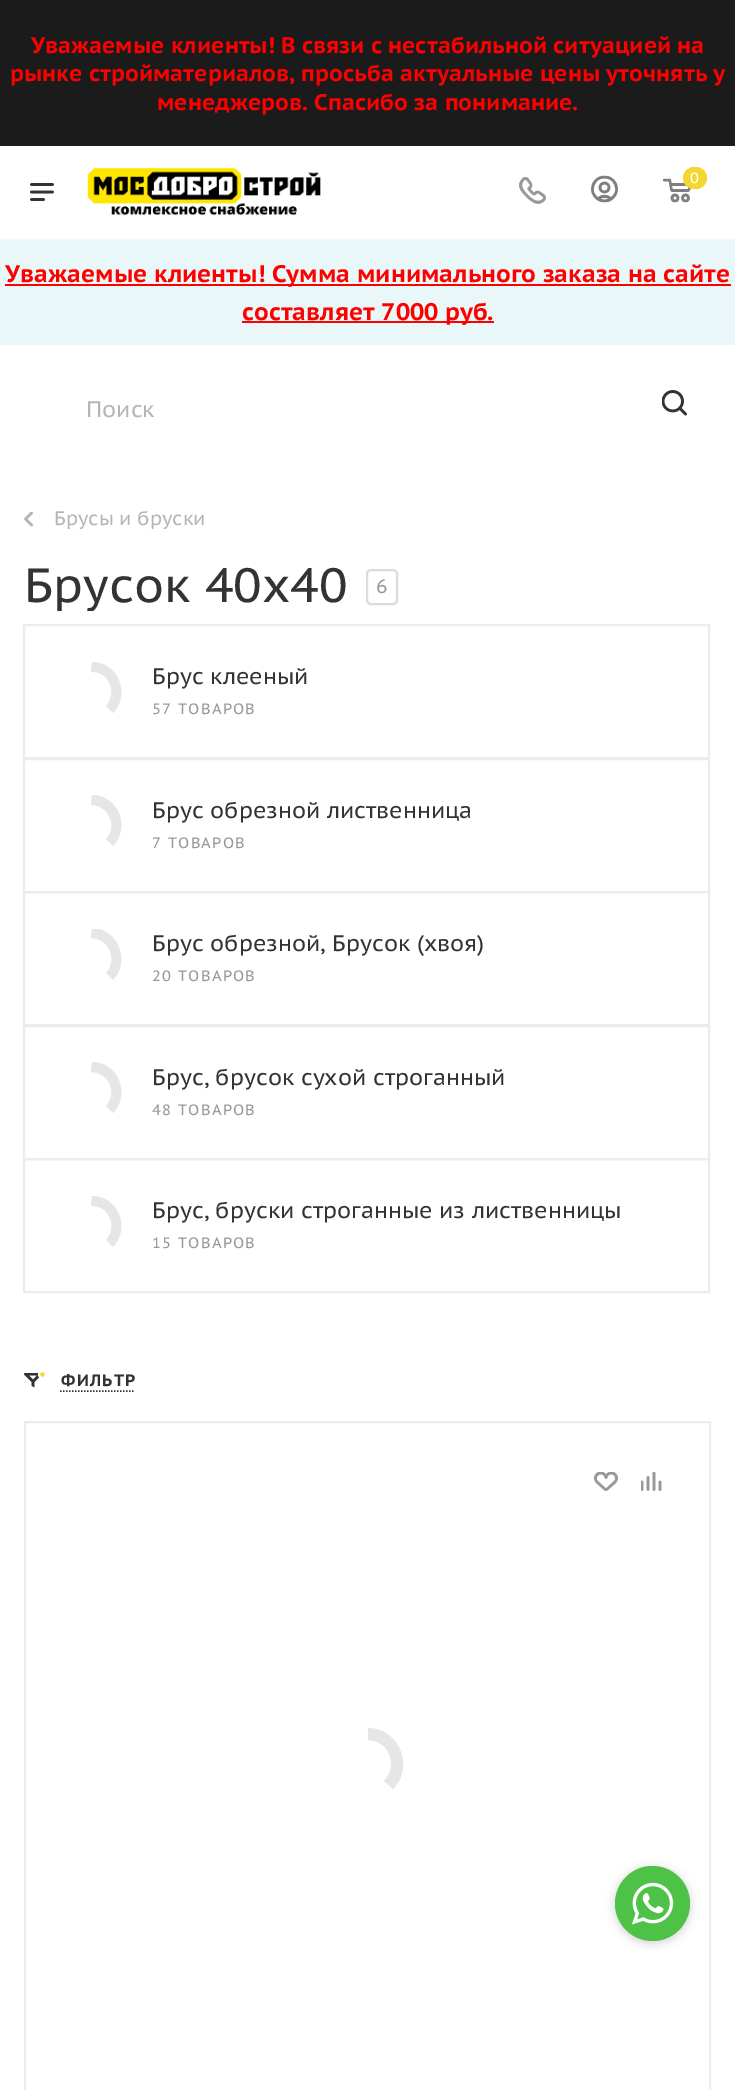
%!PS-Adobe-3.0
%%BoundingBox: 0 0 735 2090
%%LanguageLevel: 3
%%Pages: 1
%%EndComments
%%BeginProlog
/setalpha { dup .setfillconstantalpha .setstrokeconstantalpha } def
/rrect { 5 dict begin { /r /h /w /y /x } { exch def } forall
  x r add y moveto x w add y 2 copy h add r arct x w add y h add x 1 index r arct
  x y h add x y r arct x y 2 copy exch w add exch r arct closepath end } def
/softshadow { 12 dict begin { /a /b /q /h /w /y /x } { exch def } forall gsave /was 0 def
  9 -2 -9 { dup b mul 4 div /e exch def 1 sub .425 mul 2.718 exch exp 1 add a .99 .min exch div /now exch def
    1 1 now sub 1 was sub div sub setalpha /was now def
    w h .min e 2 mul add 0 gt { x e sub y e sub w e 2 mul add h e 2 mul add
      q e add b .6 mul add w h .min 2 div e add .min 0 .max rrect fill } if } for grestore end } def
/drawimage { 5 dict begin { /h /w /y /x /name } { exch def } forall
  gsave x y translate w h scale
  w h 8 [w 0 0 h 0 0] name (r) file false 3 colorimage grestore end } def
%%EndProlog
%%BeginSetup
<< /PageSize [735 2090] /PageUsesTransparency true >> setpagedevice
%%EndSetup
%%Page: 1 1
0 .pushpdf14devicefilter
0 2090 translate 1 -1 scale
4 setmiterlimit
1 setgray
0 0 735 2090 rectfill
0.106 setgray
0 0 735 146 rectfill
0.973 setgray
0 239 735 1 rectfill
(images/1.raw) 87 168 234 48 drawimage
(images/2.raw) 519 177 27 27 drawimage
(images/3.raw) 591 175 27 28 drawimage
(images/4.raw) 663 178 28 25 drawimage
0.957 0.839 0.192 setrgbcolor
683 167 24 22 11 rrect fill
(images/5.raw) 30 183 24 18 drawimage
0.918 0.969 0.976 setrgbcolor
0 240 735 105 rectfill
1 0 0 setrgbcolor
5 284 726 2 rectfill
242 321 252 2 rectfill
(images/6.raw) 662 390 25 26 drawimage
(images/7.raw) 24 512 9 15 drawimage
0.859 setgray
2 setlinewidth
367 570 30 34 4 rrect stroke
0.925 setgray
24 625 685 133 rectstroke
0.902 setgray
newpath 92 662 moveto 118 662 131 694 113 713 curveto 106 706 lineto 118 693 109 671 91 672 curveto closepath fill
0.925 setgray
24 759 685 133 rectstroke
0.902 setgray
newpath 92 795 moveto 118 795 131 827 113 846 curveto 106 839 lineto 118 827 109 805 91 805 curveto closepath fill
0.925 setgray
24 892 685 133 rectstroke
gsave
62 929 60 60 rectclip
0.902 setgray
newpath 92 928 moveto 118 929 131 961 113 980 curveto 106 973 lineto 118 960 109 938 91 938 curveto closepath fill
grestore
24 1026 685 133 rectstroke
0.902 setgray
newpath 92 1062 moveto 118 1062 131 1094 113 1113 curveto 106 1106 lineto 118 1094 109 1072 91 1072 curveto closepath fill
0.925 setgray
24 1159 685 133 rectstroke
0.902 setgray
newpath 92 1196 moveto 118 1196 131 1228 113 1247 curveto 106 1240 lineto 118 1227 109 1205 91 1206 curveto closepath fill
(images/8.raw) 24 1373 16 15 drawimage
0.957 0.839 0.192 setrgbcolor
newpath 42.5 1374.5 3.5 0 360 arc closepath gsave fill grestore
1 setgray
stroke
0.2 setgray
1.5 setlinewidth
[1.5 1.5] 0 setdash
newpath 60 1391 moveto 135 1391 lineto stroke
0.925 setgray
2 setlinewidth
[] 0 setdash
25 1422 685 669 rectstroke
(images/9.raw) 594 1472 24 19 drawimage
(images/10.raw) 641 1472 21 19 drawimage
0.902 setgray
newpath 368 1728 moveto 399 1728 415 1767 393 1789 curveto 384 1781 lineto 399 1766 389 1740 368 1740 curveto closepath fill
0.533 setgray
615 1868 75 75 37.5 5 0.4 softshadow
0.302 0.761 0.278 setrgbcolor
newpath 652.5 1903.5 37.5 0 360 arc closepath fill
(images/11.raw) 632 1882 42 43 drawimage
/PTSansCaption-Bold [22.5 0 0 -22.5 0 0] selectfont
1 0 0 setrgbcolor
31 53 moveto (Уважаемые клиенты! В связи с нестабильной ситуацией на) show
10 81 moveto (рынке стройматериалов, просьба актуальные цены уточнять у) show
157 110 moveto (менеджеров. Спасибо за понимание.) show
/PTSansCaption-Regular [15 0 0 -15 0 0] selectfont
1 setgray
690 183 moveto (0) show
/PTSansCaption-Bold [24 0 0 -24 0 0] selectfont
1 0 0 setrgbcolor
5 282 moveto (Уважаемые клиенты! Сумма минимального заказа на сайте) show
242 320 moveto (составляет 7000 руб.) show
/PTSansCaption-Regular [22.5 0 0 -22.5 0 0] selectfont
0.714 0.71 0.71 setrgbcolor
86 417 moveto (Поиск) show
/PTSansCaption-Regular [19.5 0 0 -19.5 0 0] selectfont
54 525 moveto (Брусы и бруски) show
gsave
24 557 687 54 rectclip
/PTSansCaption-Regular [48 0 0 -48 0 0] selectfont
0.2 setgray
24 602 moveto (Брусок 40х40) show
grestore
0.6 setgray
376 593 moveto (6) show
/PTSansCaption-Regular [22.5 0 0 -22.5 0 0] selectfont
0.2 setgray
152 684 moveto (Брус клееный) show
/PTSansCaption-Regular [15 0 0 -15 0 0] selectfont
0.6 setgray
152 714 moveto 1.25 0 (57 ТОВАРОВ) ashow
/PTSansCaption-Regular [22.5 0 0 -22.5 0 0] selectfont
0.2 setgray
152 818 moveto (Брус обрезной лиственница) show
/PTSansCaption-Regular [15 0 0 -15 0 0] selectfont
0.6 setgray
152 848 moveto 1.25 0 (7 ТОВАРОВ) ashow
/PTSansCaption-Regular [22.5 0 0 -22.5 0 0] selectfont
0.2 setgray
152 951 moveto (Брус обрезной, Брусок \(хвоя\)) show
/PTSansCaption-Regular [15 0 0 -15 0 0] selectfont
0.6 setgray
152 981 moveto 1.25 0 (20 ТОВАРОВ) ashow
/PTSansCaption-Regular [22.5 0 0 -22.5 0 0] selectfont
0.2 setgray
152 1085 moveto (Брус, брусок сухой строганный) show
/PTSansCaption-Regular [15 0 0 -15 0 0] selectfont
0.6 setgray
152 1115 moveto 1.25 0 (48 ТОВАРОВ) ashow
/PTSansCaption-Regular [22.5 0 0 -22.5 0 0] selectfont
0.2 setgray
152 1218 moveto (Брус, бруски строганные из лиственницы) show
/PTSansCaption-Regular [15 0 0 -15 0 0] selectfont
0.6 setgray
152 1248 moveto 1.25 0 (15 ТОВАРОВ) ashow
/PTSansCaption-Bold [16.5 0 0 -16.5 0 0] selectfont
0.2 setgray
61 1386 moveto 1.25 0 (ФИЛЬТР) ashow
.poppdf14devicefilter showpage
%%EOF
